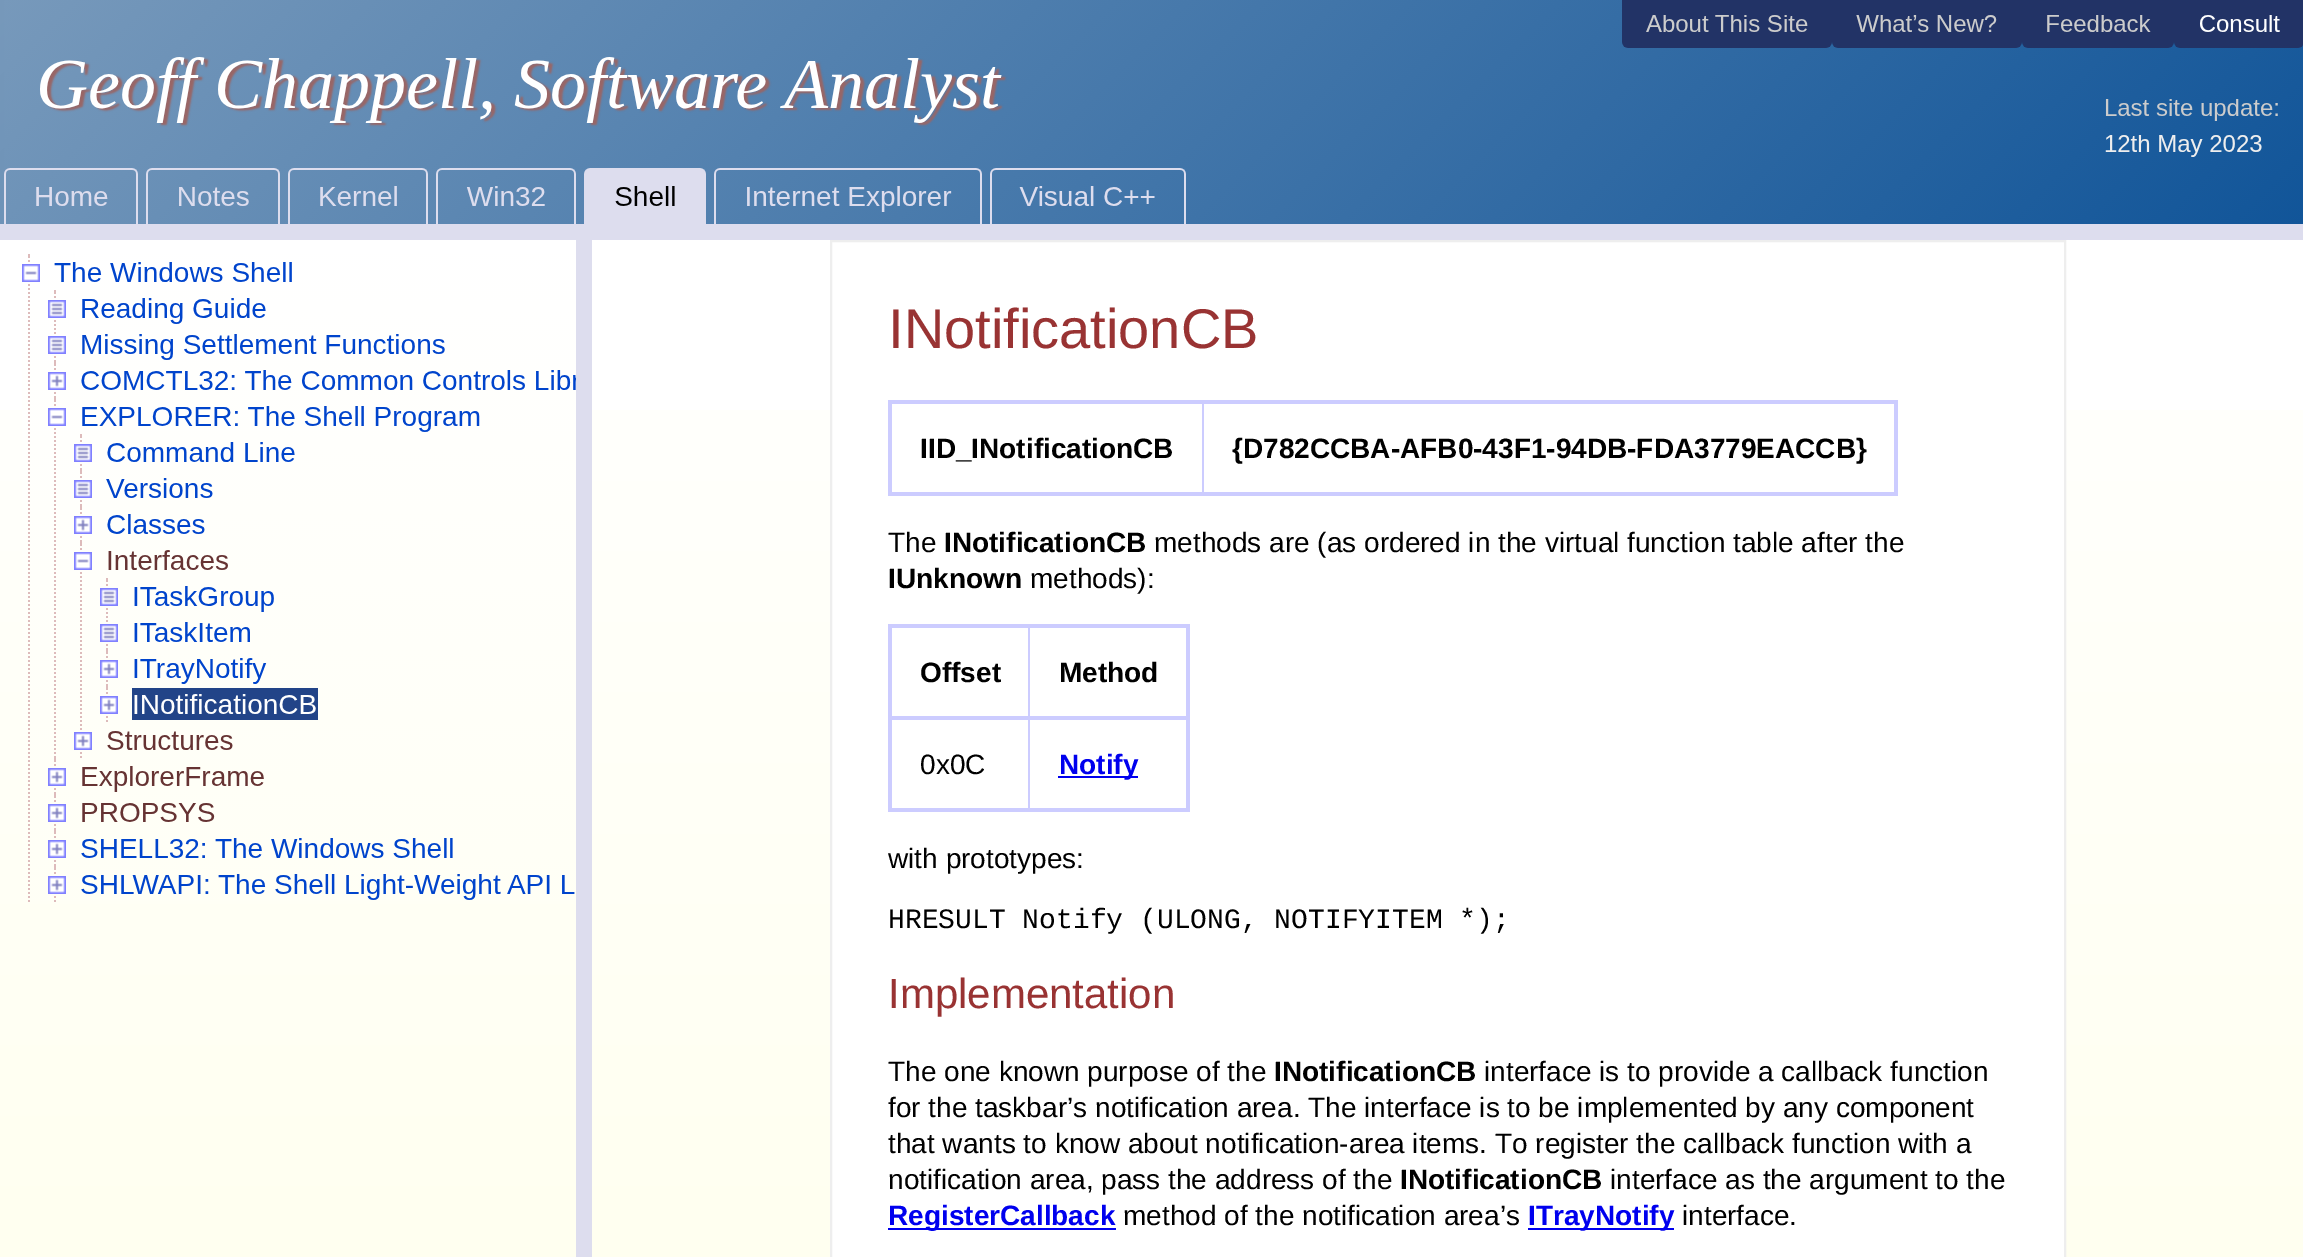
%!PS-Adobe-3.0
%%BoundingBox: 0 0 2303 1257
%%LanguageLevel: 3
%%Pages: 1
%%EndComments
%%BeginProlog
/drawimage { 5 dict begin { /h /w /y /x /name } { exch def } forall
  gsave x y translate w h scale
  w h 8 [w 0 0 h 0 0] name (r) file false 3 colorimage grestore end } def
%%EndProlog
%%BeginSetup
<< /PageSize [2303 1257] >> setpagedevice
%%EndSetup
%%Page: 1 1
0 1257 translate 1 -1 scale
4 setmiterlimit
1 setgray
0 0 2303 1257 rectfill
gsave newpath 0 0 moveto 4 0 lineto 4 224 lineto 0 224 lineto closepath clip newpath
<< /ShadingType 2 /ColorSpace /DeviceRGB /Coords [520 -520 1784 744] /Extend [true true] /Function << /FunctionType 2 /Domain [0 1] /C0 [0.467 0.6 0.733] /C1 [0.067 0.333 0.6] /N 1 >> >> shfill grestore
0.867 0.867 0.933 setrgbcolor
0 224 2303 16 rectfill
(images/1.raw) 4 0 2299 224 drawimage
gsave newpath 0 410 moveto 576 410 lineto 576 1257 lineto 0 1257 lineto closepath clip newpath
<< /ShadingType 2 /ColorSpace /DeviceRGB /Coords [288 240 288 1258] /Extend [true true] /Function << /FunctionType 2 /Domain [0 1] /C0 [1 1 1] /C1 [1 1 0.941] /N 1 >> >> shfill grestore
(images/2.raw) 22 254 554 648 drawimage
gsave newpath 592 410 moveto 2303 410 lineto 2303 1257 lineto 592 1257 lineto closepath clip newpath
<< /ShadingType 2 /ColorSpace /DeviceRGB /Coords [1448 240 1448 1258] /Extend [true true] /Function << /FunctionType 2 /Domain [0 1] /C0 [1 1 1] /C1 [1 1 0.941] /N 1 >> >> shfill grestore
576 240 16 1017 rectfill
1 setgray
832 410 1232 847 rectfill
0.933 setgray
2 setlinewidth
831 241 1234 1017 rectstroke
0.8 0.8 1 setrgbcolor
1202 400 2 94 rectfill
888 400 1010 4 rectfill
1894 400 4 96 rectfill
888 492 1010 4 rectfill
888 400 4 96 rectfill
1028 624 2 186 rectfill
888 624 302 4 rectfill
1186 624 4 188 rectfill
888 808 302 4 rectfill
888 624 4 188 rectfill
888 716 302 4 rectfill
0 0 0.933 setrgbcolor
1058 776 80 2 rectfill
888 1228 228 2 rectfill
1528 1228 146 2 rectfill
/LiberationSans-Regular [56 0 0 -56 0 0] selectfont
0.6 0.2 0.2 setrgbcolor
888 348 moveto (INotificationCB) show
/LiberationSans-Bold [28 0 0 -28 0 0] selectfont
0 setgray
920 458 moveto (IID_INotificationCB) show
1232 458 moveto ({D782CCBA-AFB0-43F1-94DB-FDA3779EACCB}) show
/LiberationSans-Regular [28 0 0 -28 0 0] selectfont
888 552 moveto (The) show
/LiberationSans-Bold [28 0 0 -28 0 0] selectfont
944 552 moveto (INotificationCB) show
/LiberationSans-Regular [28 0 0 -28 0 0] selectfont
1154 552 moveto (methods are \(as ordered in the virtual function table after the) show
/LiberationSans-Bold [28 0 0 -28 0 0] selectfont
888 588 moveto (IUnknown) show
/LiberationSans-Regular [28 0 0 -28 0 0] selectfont
1030 588 moveto (methods\):) show
/LiberationSans-Bold [28 0 0 -28 0 0] selectfont
920 682 moveto (Offset) show
1059 682 moveto (Method) show
/LiberationSans-Regular [28 0 0 -28 0 0] selectfont
920 774 moveto (0x0C) show
/LiberationSans-Bold [28 0 0 -28 0 0] selectfont
0 0 0.933 setrgbcolor
1059 774 moveto (Notify) show
/LiberationSans-Regular [28 0 0 -28 0 0] selectfont
0 setgray
888 868 moveto (with prototypes:) show
/LiberationMono-Regular [28 0 0 -28 0 0] selectfont
888 928 moveto (HRESULT Notify \(ULONG, NOTIFYITEM *\);) show
/LiberationSans-Regular [42 0 0 -42 0 0] selectfont
0.6 0.2 0.2 setrgbcolor
888 1008 moveto (Implementation) show
/LiberationSans-Regular [28 0 0 -28 0 0] selectfont
0 setgray
888 1081 moveto (The one known purpose of the) show
/LiberationSans-Bold [28 0 0 -28 0 0] selectfont
1274 1081 moveto (INotificationCB) show
/LiberationSans-Regular [28 0 0 -28 0 0] selectfont
1484 1081 moveto (interface is to provide a callback function) show
888 1117 moveto (for the taskbar’s notification area. The interface is to be implemented by any component) show
888 1153 moveto (that wants to know about notification-area items. To register the callback function with a) show
888 1189 moveto (notification area, pass the address of the) show
/LiberationSans-Bold [28 0 0 -28 0 0] selectfont
1400 1189 moveto (INotificationCB) show
/LiberationSans-Regular [28 0 0 -28 0 0] selectfont
1610 1189 moveto (interface as the argument to the) show
/LiberationSans-Bold [28 0 0 -28 0 0] selectfont
0 0 0.933 setrgbcolor
888 1225 moveto (RegisterCallback) show
/LiberationSans-Regular [28 0 0 -28 0 0] selectfont
0 setgray
1123 1225 moveto (method of the notification area’s) show
/LiberationSans-Bold [28 0 0 -28 0 0] selectfont
0 0 0.933 setrgbcolor
1528 1225 moveto (ITrayNotify) show
/LiberationSans-Regular [28 0 0 -28 0 0] selectfont
0 setgray
1682 1225 moveto (interface.) show
showpage
%%EOF
